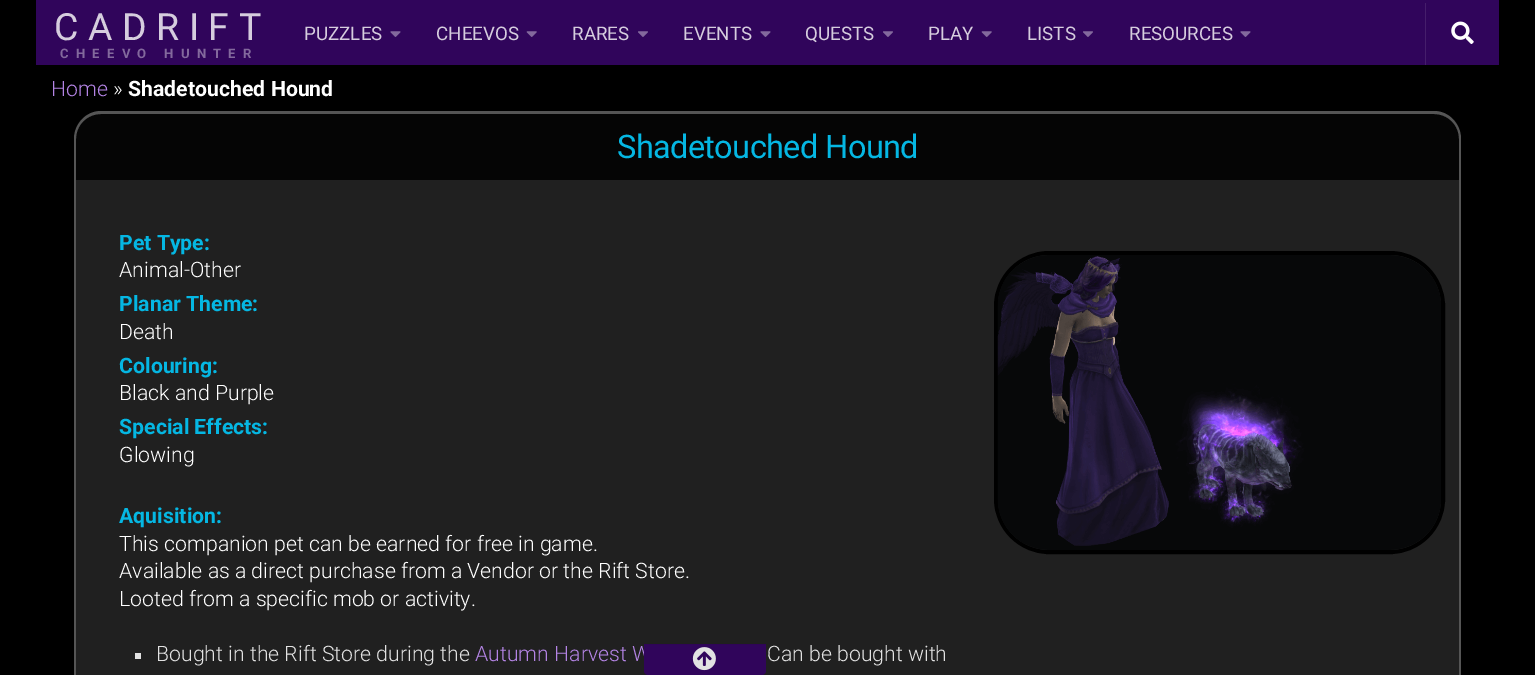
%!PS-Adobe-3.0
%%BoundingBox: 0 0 1535 675
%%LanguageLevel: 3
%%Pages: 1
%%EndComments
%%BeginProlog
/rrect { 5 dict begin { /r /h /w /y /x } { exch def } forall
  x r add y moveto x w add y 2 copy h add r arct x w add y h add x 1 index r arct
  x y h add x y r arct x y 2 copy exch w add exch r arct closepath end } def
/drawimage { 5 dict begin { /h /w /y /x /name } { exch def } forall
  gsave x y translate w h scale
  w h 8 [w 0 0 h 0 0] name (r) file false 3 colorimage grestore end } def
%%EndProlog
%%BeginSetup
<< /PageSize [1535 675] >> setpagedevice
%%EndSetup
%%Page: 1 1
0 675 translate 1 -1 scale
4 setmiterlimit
0 setgray
0 0 1535 675 rectfill
0.188 0.02 0.357 setrgbcolor
36 0 1463 65 rectfill
(images/1.raw) 390 31 11 6 drawimage
(images/2.raw) 526 31 11 6 drawimage
(images/3.raw) 638 31 10 6 drawimage
(images/1.raw) 760 31 11 6 drawimage
(images/3.raw) 883 31 10 6 drawimage
(images/2.raw) 981 31 11 6 drawimage
(images/3.raw) 1083 31 10 6 drawimage
(images/1.raw) 1240 31 11 6 drawimage
0.271 0.118 0.42 setrgbcolor
1425 3 1 62 rectfill
(images/4.raw) 1451 21 23 23 drawimage
0.02 setgray
newpath 101 114 moveto 1434 114 lineto 1448 114 1459 125 1459 139 curveto 1459 180 lineto 76 180 lineto 76 139 lineto 76 125 87 114 101 114 curveto closepath fill
0.333 setgray
newpath 101 111 moveto 1434 111 lineto 1449 111 1461 124 1461 139 curveto 1461 180 lineto 74 180 lineto 74 139 lineto 74 124 86 111 101 111 curveto closepath 101 114 moveto 1434 114 lineto 1448 114 1459 125 1459 139 curveto 1459 180 lineto 76 180 lineto 76 139 lineto 76 125 87 114 101 114 curveto closepath eofill
0.125 setgray
76 180 1383 495 rectfill
0.333 setgray
newpath 74 180 moveto 1461 180 lineto 1461 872 lineto 1461 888 1449 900 1434 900 curveto 101 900 lineto 86 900 74 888 74 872 curveto closepath 76 180 moveto 1459 180 lineto 1459 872 lineto 1459 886 1448 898 1434 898 curveto 101 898 lineto 87 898 76 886 76 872 curveto closepath eofill
0.886 setgray
135 653 6 6 rectfill
0 setgray
4 setlinewidth
996 253 447 299 53 rrect stroke
(images/5.raw) 997 255 444 295 drawimage
/Roboto-Regular [37.5 0 0 -37.5 0 0] selectfont
0.839 0.804 0.871 setrgbcolor
54 40 moveto 9.5 0 (CADRIFT) ashow
/Roboto-Bold [13.1 0 0 -13.1 0 0] selectfont
0.514 0.412 0.616 setrgbcolor
60 58 moveto 7.25 0 (CHEEVO HUNTER) ashow
/Roboto-Regular [18.75 0 0 -18.75 0 0] selectfont
0.839 0.804 0.871 setrgbcolor
304 40 moveto (PUZZLES) show
436 40 moveto (CHEEVOS) show
572 40 moveto (RARES) show
683 40 moveto (EVENTS) show
805 40 moveto (QUESTS) show
928 40 moveto (PLAY) show
1027 40 moveto (LISTS) show
1129 40 moveto (RESOURCES) show
/Roboto-Light [21.25 0 0 -21.25 0 0] selectfont
0.706 0.518 0.898 setrgbcolor
51 96 moveto (Home) show
1 setgray
113 96 moveto (») show
/Roboto-Bold [21.25 0 0 -21.25 0 0] selectfont
128 96 moveto (Shadetouched Hound) show
/Roboto-Regular [32.5 0 0 -32.5 0 0] selectfont
0.02 0.718 0.89 setrgbcolor
617 158 moveto -0.6 0 (Shadetouched Hound) ashow
/Roboto-Bold [21.25 0 0 -21.25 0 0] selectfont
119 250 moveto (Pet Type:) show
/Roboto-Light [21.25 0 0 -21.25 0 0] selectfont
1 setgray
119 277 moveto (Animal-Other) show
/Roboto-Bold [21.25 0 0 -21.25 0 0] selectfont
0.02 0.718 0.89 setrgbcolor
119 311 moveto (Planar Theme:) show
/Roboto-Light [21.25 0 0 -21.25 0 0] selectfont
1 setgray
119 339 moveto (Death) show
/Roboto-Bold [21.25 0 0 -21.25 0 0] selectfont
0.02 0.718 0.89 setrgbcolor
119 373 moveto (Colouring:) show
/Roboto-Light [21.25 0 0 -21.25 0 0] selectfont
1 setgray
119 400 moveto (Black and Purple) show
/Roboto-Bold [21.25 0 0 -21.25 0 0] selectfont
0.02 0.718 0.89 setrgbcolor
119 434 moveto (Special Effects:) show
/Roboto-Light [21.25 0 0 -21.25 0 0] selectfont
1 setgray
119 462 moveto (Glowing) show
/Roboto-Bold [21.25 0 0 -21.25 0 0] selectfont
0.02 0.718 0.89 setrgbcolor
119 523 moveto (Aquisition:) show
/Roboto-Light [21.25 0 0 -21.25 0 0] selectfont
1 setgray
119 551 moveto (This companion pet can be earned for free in game.) show
119 578 moveto (Available as a direct purchase from a Vendor or the Rift Store.) show
119 606 moveto (Looted from a specific mob or activity.) show
0.886 setgray
156 661 moveto (Bought in the Rift Store during the) show
0.706 0.518 0.898 setrgbcolor
475 661 moveto (Autumn Harvest W) show
0.886 setgray
767 661 moveto (Can be bought with) show
0.188 0.02 0.357 setrgbcolor
newpath 644 644 moveto 766 644 lineto 766 671 lineto 766 673 764 675 762 675 curveto 648 675 lineto 646 675 644 673 644 671 curveto closepath fill
0.18 0.02 0.337 setrgbcolor
644 644 122 1 rectfill
(images/6.raw) 692 647 24 24 drawimage
showpage
%%EOF
